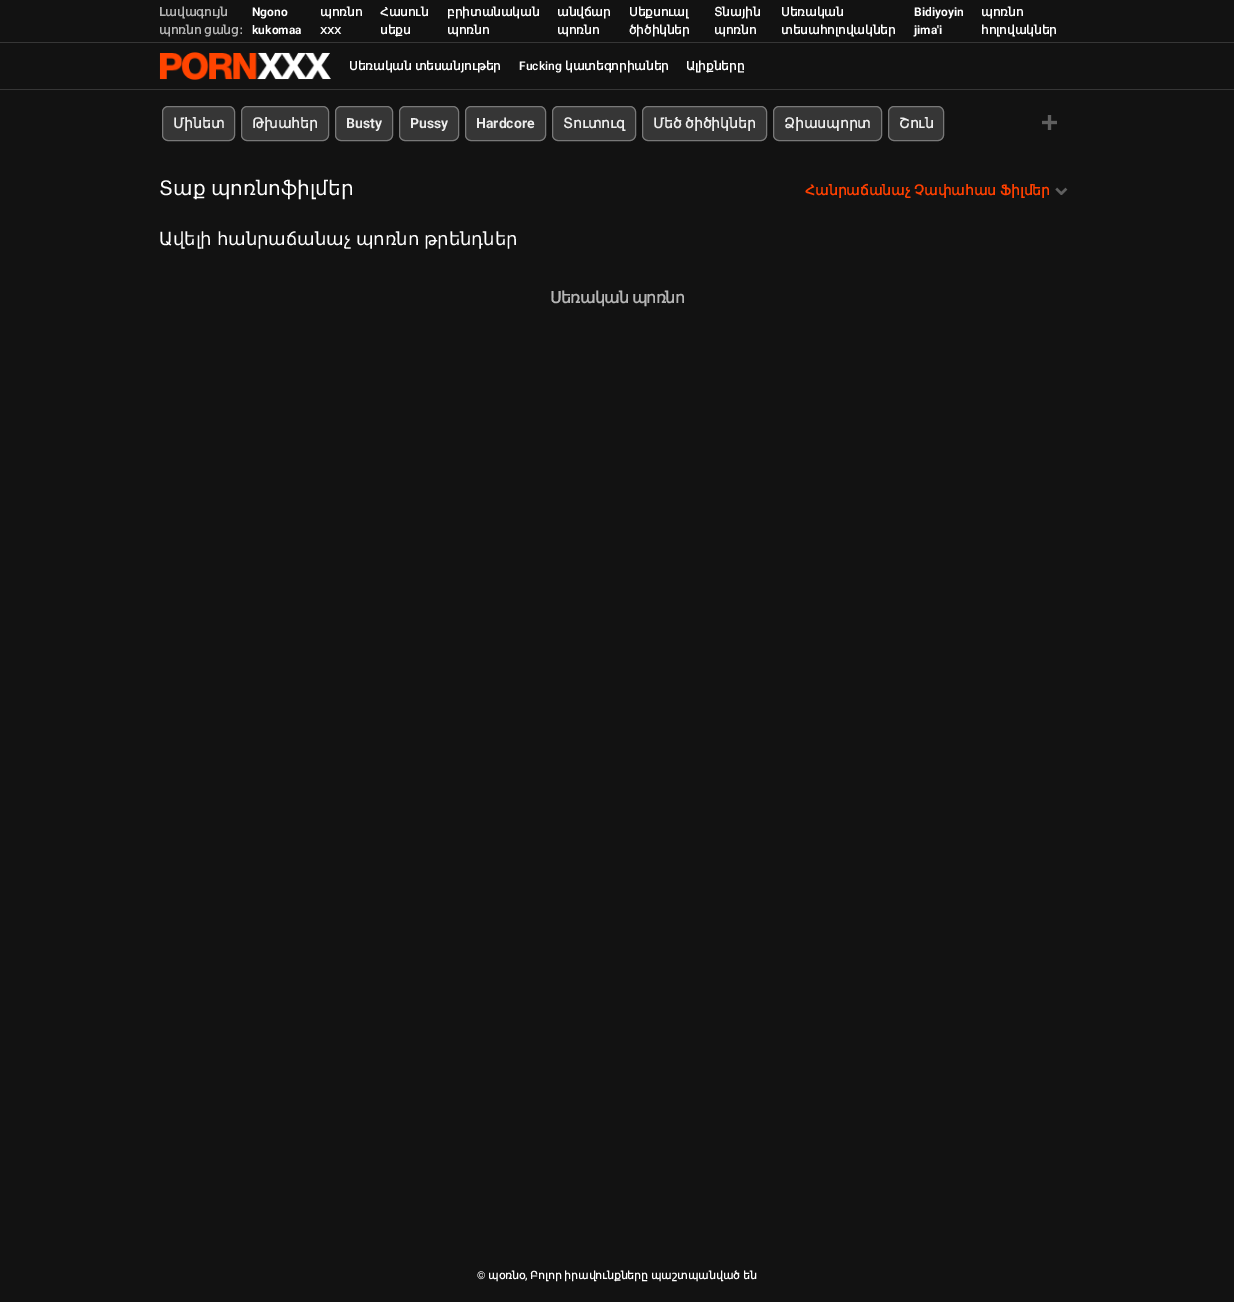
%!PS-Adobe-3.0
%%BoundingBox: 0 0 1234 1302
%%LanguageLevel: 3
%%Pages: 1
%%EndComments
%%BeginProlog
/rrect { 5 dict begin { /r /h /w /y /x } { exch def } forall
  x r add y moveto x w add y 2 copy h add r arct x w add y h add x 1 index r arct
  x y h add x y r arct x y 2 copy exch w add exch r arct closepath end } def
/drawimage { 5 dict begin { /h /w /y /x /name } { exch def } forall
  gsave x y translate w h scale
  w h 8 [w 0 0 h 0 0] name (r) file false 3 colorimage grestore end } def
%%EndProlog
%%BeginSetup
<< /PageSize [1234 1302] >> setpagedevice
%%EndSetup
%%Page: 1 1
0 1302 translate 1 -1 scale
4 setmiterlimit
0.071 setgray
0 0 1234 1302 rectfill
0.212 setgray
0 42 1234 1 rectfill
0 89 1234 1 rectfill
(images/1.raw) 159 52 172 28 drawimage
162.5 106.5 72 34 5.5 rrect gsave fill grestore
0.471 setgray
stroke
0.212 setgray
241.5 106.5 87 34 5.5 rrect gsave fill grestore
0.471 setgray
stroke
0.212 setgray
335.5 106.5 57 34 5.5 rrect gsave fill grestore
0.471 setgray
stroke
0.212 setgray
399.5 106.5 59 34 5.5 rrect gsave fill grestore
0.471 setgray
stroke
0.212 setgray
465.5 106.5 80 34 5.5 rrect gsave fill grestore
0.471 setgray
stroke
0.212 setgray
552.5 106.5 83 34 5.5 rrect gsave fill grestore
0.471 setgray
stroke
0.212 setgray
642.5 106.5 124 34 5.5 rrect gsave fill grestore
0.471 setgray
stroke
0.212 setgray
773.5 106.5 108 34 5.5 rrect gsave fill grestore
0.471 setgray
stroke
0.212 setgray
888.5 106.5 55 34 5.5 rrect gsave fill grestore
0.471 setgray
stroke
(images/2.raw) 1042 115 15 15 drawimage
(images/3.raw) 1055 187 13 8 drawimage
/DejaVuSans-Bold [12 0 0 -12 0 0] selectfont
0.71 setgray
159 16 moveto (Լավագույն) show
159 34 moveto -1 0 32 (պոռնո ցանց:) widthshow
/Roboto-Bold [12 0 0 -12 0 0] selectfont
1 setgray
252 16 moveto (Ngono) show
252 34 moveto (kukomaa) show
/DejaVuSans-Bold [12 0 0 -12 0 0] selectfont
320 16 moveto (պոռնո) show
320 34 moveto (xxx) show
380 16 moveto (Հասուն) show
380 34 moveto (սեքս) show
447 16 moveto (բրիտանական) show
447 34 moveto (պոռնո) show
557 16 moveto (անվճար) show
557 34 moveto (պոռնո) show
629 16 moveto (Սեքսուալ) show
629 34 moveto (ծիծիկներ) show
714 16 moveto (Տնային) show
714 34 moveto (պոռնո) show
781 16 moveto (Սեռական) show
781 34 moveto (տեսահոլովակներ) show
/Roboto-Bold [12 0 0 -12 0 0] selectfont
914 16 moveto (Bidiyoyin) show
914 34 moveto (jima'i) show
/DejaVuSans-Bold [12 0 0 -12 0 0] selectfont
981 16 moveto (պոռնո) show
981 34 moveto (հոլովակներ) show
349 70 moveto -1 0 32 (Սեռական տեսանյութեր) widthshow
/Roboto-SemiBold [12 0 0 -12 0 0] selectfont
519 70 moveto (Fucking) show
/DejaVuSans-Bold [12 0 0 -12 0 0] selectfont
565 70 moveto (կատեգորիաներ) show
686 70 moveto (Ալիքները) show
/DejaVuSans-Bold [14 0 0 -14 0 0] selectfont
0.929 setgray
173 128 moveto (Մինետ) show
252 128 moveto (Թխահեր) show
/Roboto-Bold [14 0 0 -14 0 0] selectfont
346 128 moveto (Busty) show
410 128 moveto (Pussy) show
476 128 moveto (Hardcore) show
/DejaVuSans-Bold [14 0 0 -14 0 0] selectfont
563 128 moveto (Տուտուզ) show
653 128 moveto -1 0 32 (Մեծ ծիծիկներ) widthshow
784 128 moveto (Ձիասպորտ) show
899 128 moveto (Շուն) show
/DejaVuSans-Regular [20 0 0 -20 0 0] selectfont
1 setgray
159 195 moveto -1 0 32 (Տաք պոռնոֆիլմեր) widthshow
/DejaVuSans-Bold [14 0 0 -14 0 0] selectfont
1 0.251 0 setrgbcolor
805 195 moveto -1 0 32 (Հանրաճանաչ Չափահաս Ֆիլմեր) widthshow
/DejaVuSans-Regular [18 0 0 -18 0 0] selectfont
1 setgray
159 245 moveto -1 0 32 (Ավելի հանրաճանաչ պոռնո թրենդներ) widthshow
/DejaVuSans-Bold [15.75 0 0 -15.75 0 0] selectfont
0.71 setgray
550 303 moveto -1 0 32 -0.6 0 (Սեռական պոռնո) awidthshow
/Roboto-SemiBold [10.8 0 0 -10.8 0 0] selectfont
1 setgray
477 1279 moveto (©) show
/DejaVuSans-Bold [10.8 0 0 -10.8 0 0] selectfont
488 1279 moveto (պօռնօ) show
/Roboto-SemiBold [10.8 0 0 -10.8 0 0] selectfont
525 1279 moveto (,) show
/DejaVuSans-Bold [10.8 0 0 -10.8 0 0] selectfont
530 1279 moveto -0.5 0 32 (Բոլոր իրավունքները պաշտպանված են) widthshow
showpage
%%EOF
